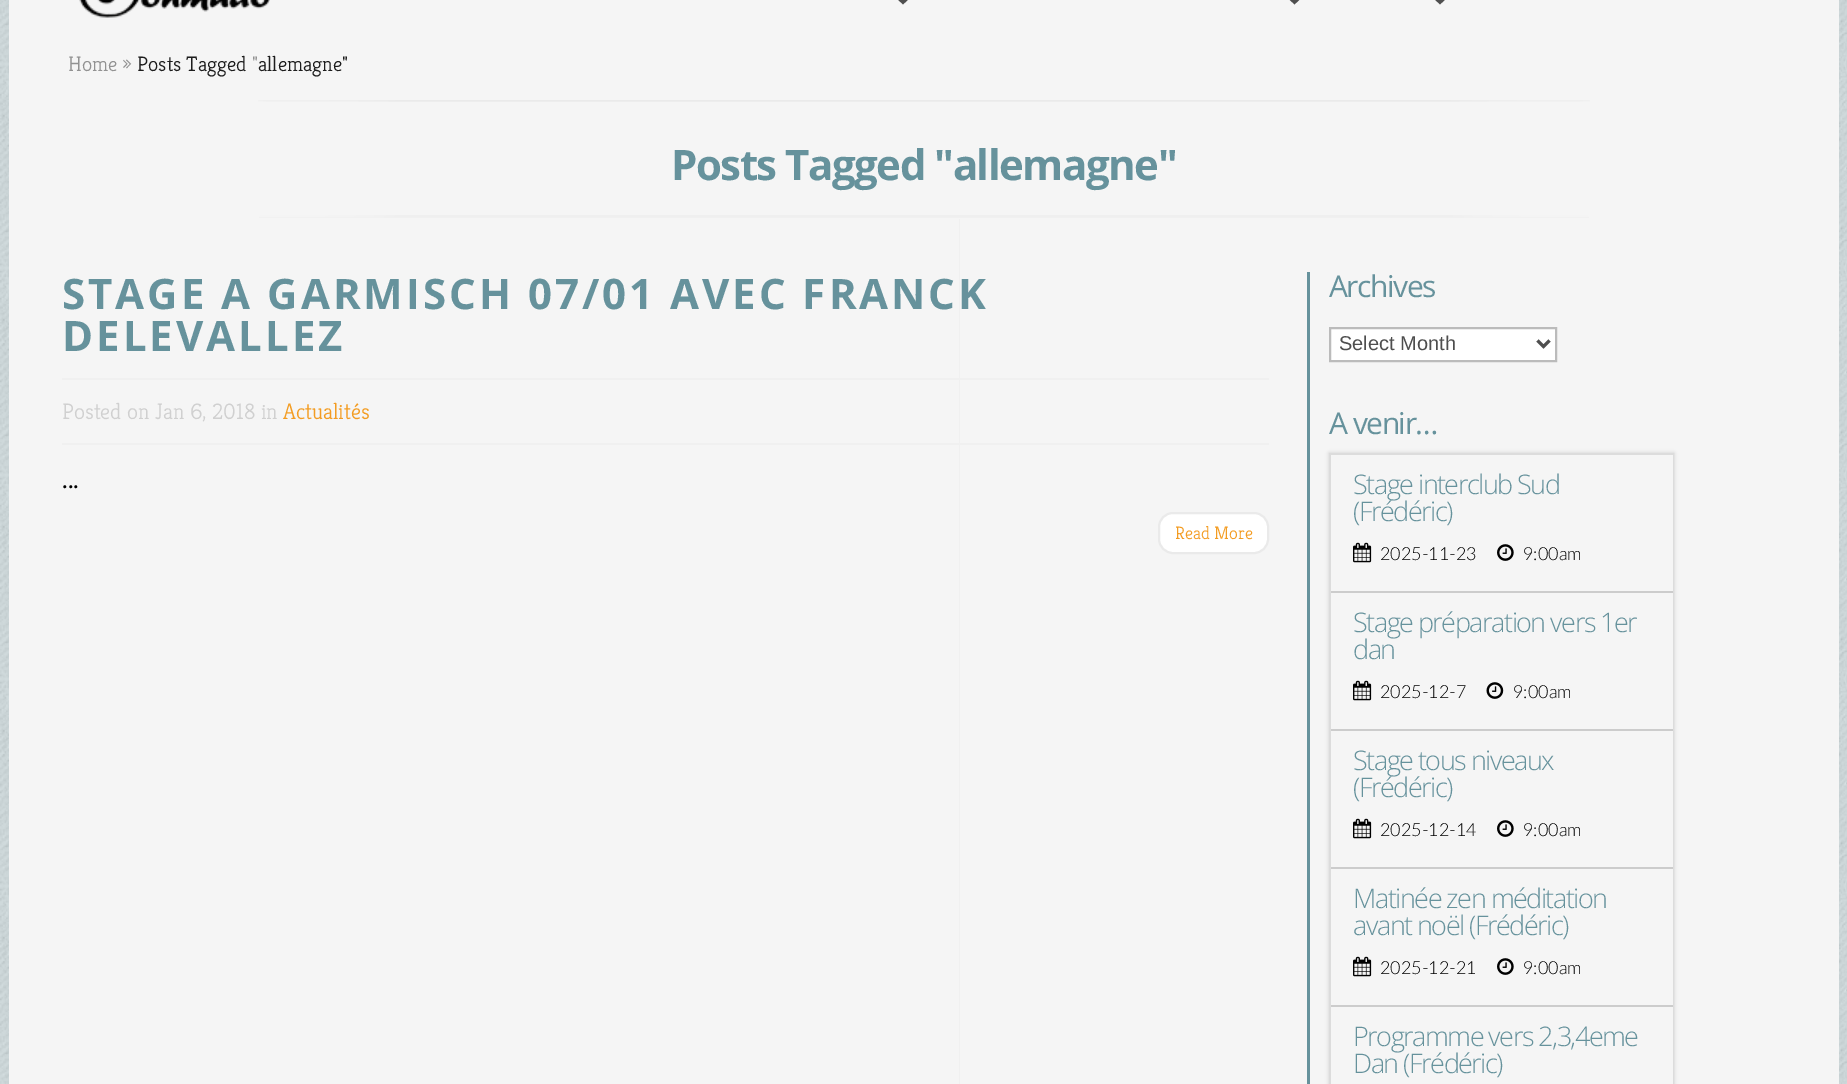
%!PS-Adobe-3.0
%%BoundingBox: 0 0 1847 1084
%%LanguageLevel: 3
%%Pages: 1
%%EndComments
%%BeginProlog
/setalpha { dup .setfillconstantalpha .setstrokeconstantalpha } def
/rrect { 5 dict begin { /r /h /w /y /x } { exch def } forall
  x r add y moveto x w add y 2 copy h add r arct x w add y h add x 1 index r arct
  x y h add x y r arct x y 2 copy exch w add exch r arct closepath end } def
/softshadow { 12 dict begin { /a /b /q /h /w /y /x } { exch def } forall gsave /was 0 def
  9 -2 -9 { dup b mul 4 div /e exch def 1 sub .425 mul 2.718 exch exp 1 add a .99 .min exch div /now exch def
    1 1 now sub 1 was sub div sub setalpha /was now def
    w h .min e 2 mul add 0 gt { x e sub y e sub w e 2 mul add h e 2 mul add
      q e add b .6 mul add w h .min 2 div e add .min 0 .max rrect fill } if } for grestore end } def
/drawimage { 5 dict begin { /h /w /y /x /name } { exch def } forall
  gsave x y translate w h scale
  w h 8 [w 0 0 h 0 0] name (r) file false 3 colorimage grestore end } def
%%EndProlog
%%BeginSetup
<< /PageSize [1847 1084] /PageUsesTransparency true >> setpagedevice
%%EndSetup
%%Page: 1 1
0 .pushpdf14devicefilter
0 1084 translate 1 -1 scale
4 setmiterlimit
0.816 0.871 0.882 setrgbcolor
0 0 1847 1084 rectfill
(images/1.raw) 0 0 1847 1084 drawimage
0.961 setgray
9 0 1830 1084 rectfill
(images/2.raw) 79 0 191 18 drawimage
0.31 setgray
newpath 895.5 -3 moveto 910.5 -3 lineto 903 4.5 lineto closepath fill
newpath 1287 -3 moveto 1302 -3 lineto 1294.5 4.5 lineto closepath fill
newpath 1432.5 -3 moveto 1447.5 -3 lineto 1440 4.5 lineto closepath fill
(images/3.raw) 258 100 1332 2 drawimage
(images/4.raw) 259 215 1330 3 drawimage
0.941 setgray
959 219 1 865 rectfill
62 378 1207 2 rectfill
62 443 1207 2 rectfill
1 setgray
1159 513 109 40 14 rrect gsave fill grestore
0.918 setgray
2 setlinewidth
stroke
0.4 0.573 0.612 setrgbcolor
1307 272 3 812 rectfill
1 setgray
newpath 1330 328 moveto 1556 328 lineto 1556 361 lineto 1330 361 lineto closepath gsave fill grestore
0.733 setgray
stroke
0.306 setgray
3 setlinewidth
newpath 1537.5 340.5 moveto 1543.5 346.5 lineto 1549.5 340.5 lineto stroke
0.8 setgray
1329 453 345 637 0 2 0.98 softshadow
0.863 setgray
2 setlinewidth
1330 454 343 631 rectstroke
0.961 setgray
1331 455 342 136 rectfill
0.8 setgray
1331 591 342 2 rectfill
(images/5.raw) 1353 542 19 21 drawimage
(images/6.raw) 1497 544 17 17 drawimage
0.961 setgray
1331 593 342 136 rectfill
0.8 setgray
1331 729 342 2 rectfill
(images/5.raw) 1353 680 19 21 drawimage
(images/7.raw) 1486 682 18 17 drawimage
0.961 setgray
1331 731 342 136 rectfill
0.8 setgray
1331 867 342 2 rectfill
(images/5.raw) 1353 818 19 21 drawimage
(images/6.raw) 1497 820 17 17 drawimage
0.961 setgray
1331 869 342 136 rectfill
0.8 setgray
1331 1005 342 2 rectfill
(images/5.raw) 1353 956 19 21 drawimage
(images/6.raw) 1497 958 17 17 drawimage
0.961 setgray
1331 1007 342 77 rectfill
/Kreon-Light [21 0 0 -21 0 0] selectfont
0.573 setgray
68 71 moveto (Home ») show
0.114 setgray
137 71 moveto (Posts Tagged) show
0.573 setgray
252 71 moveto (") show
0.114 setgray
258 71 moveto (allemagne") show
/OpenSans-Bold [42 0 0 -42 0 0] selectfont
0.4 0.573 0.612 setrgbcolor
671 180 moveto -1.5 0 (Posts Tagged "allemagne") ashow
62 309 moveto 3 0 (STAGE A GARMISCH 07/01 AVEC FRANCK) ashow
62 351 moveto 3 0 (DELEVALLEZ) ashow
/Kreon-Light [22.5 0 0 -22.5 0 0] selectfont
0.816 setgray
62 419 moveto (Posted on Jan 6, 2018 in) show
0.953 0.612 0.133 setrgbcolor
283 419 moveto (Actualités) show
/Lato-Regular [24 0 0 -24 0 0] selectfont
0 setgray
62 488 moveto (...) show
/Kreon-Light [18 0 0 -18 0 0] selectfont
0.953 0.612 0.133 setrgbcolor
1175 539 moveto (Read More) show
/OpenSans-Regular [30 0 0 -30 0 0] selectfont
0.4 0.573 0.612 setrgbcolor
1329 297 moveto -1.5 0 (Archives) ashow
/LiberationSans-Regular [20 0 0 -20 0 0] selectfont
0.306 setgray
1339 350 moveto (Select Month) show
/OpenSans-Regular [30 0 0 -30 0 0] selectfont
0.4 0.573 0.612 setrgbcolor
1329 434 moveto -1.5 0 (A venir…) ashow
/OpenSans-Light [27 0 0 -27 0 0] selectfont
1353 494 moveto -1.5 0 (Stage interclub Sud) ashow
1353 521 moveto -1.5 0 (\(Frédéric\)) ashow
/Lato-Light [18 0 0 -18 0 0] selectfont
0 setgray
1380 560 moveto (2025-11-23) show
1523 560 moveto (9:00am) show
/OpenSans-Light [27 0 0 -27 0 0] selectfont
0.4 0.573 0.612 setrgbcolor
1353 632 moveto -1.5 0 (Stage préparation vers 1er) ashow
1353 659 moveto -1.5 0 (dan) ashow
/Lato-Light [18 0 0 -18 0 0] selectfont
0 setgray
1380 698 moveto (2025-12-7) show
1513 698 moveto (9:00am) show
/OpenSans-Light [27 0 0 -27 0 0] selectfont
0.4 0.573 0.612 setrgbcolor
1353 770 moveto -1.5 0 (Stage tous niveaux) ashow
1353 797 moveto -1.5 0 (\(Frédéric\)) ashow
/Lato-Light [18 0 0 -18 0 0] selectfont
0 setgray
1380 836 moveto (2025-12-14) show
1523 836 moveto (9:00am) show
/OpenSans-Light [27 0 0 -27 0 0] selectfont
0.4 0.573 0.612 setrgbcolor
1353 908 moveto -1.5 0 (Matinée zen méditation) ashow
1353 935 moveto -1.5 0 (avant noël \(Frédéric\)) ashow
/Lato-Light [18 0 0 -18 0 0] selectfont
0 setgray
1380 974 moveto (2025-12-21) show
1523 974 moveto (9:00am) show
/OpenSans-Light [27 0 0 -27 0 0] selectfont
0.4 0.573 0.612 setrgbcolor
1353 1046 moveto -1.5 0 (Programme vers 2,3,4eme) ashow
1353 1073 moveto -1.5 0 (Dan \(Frédéric\)) ashow
.poppdf14devicefilter showpage
%%EOF
